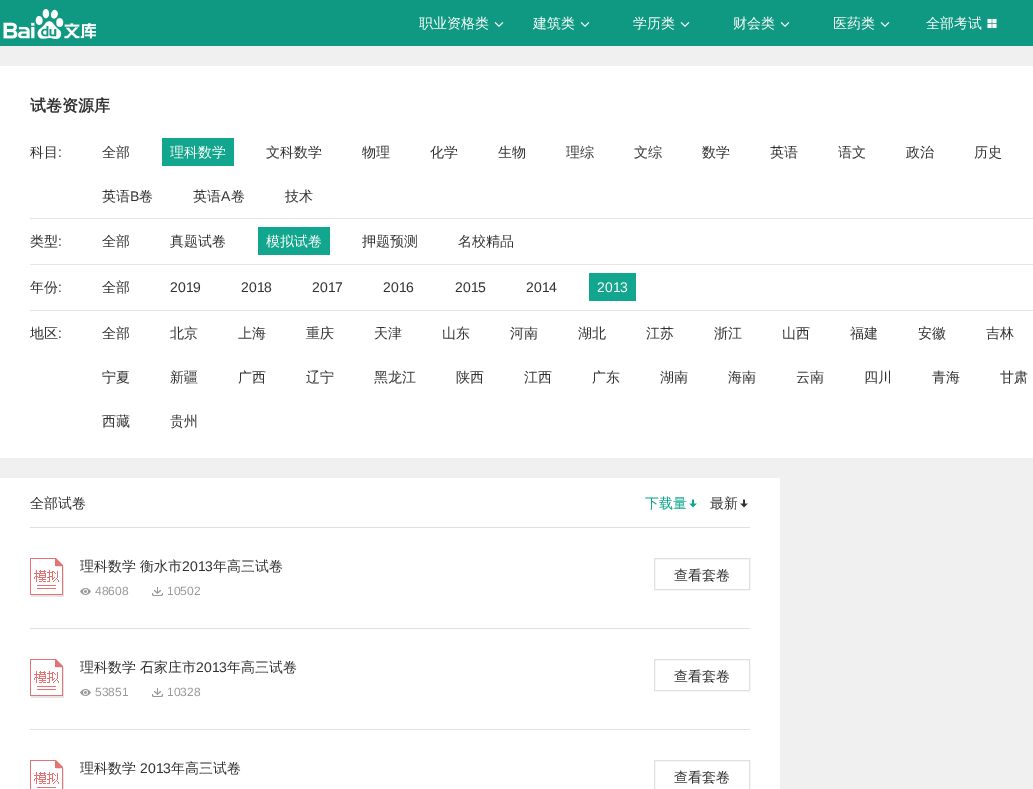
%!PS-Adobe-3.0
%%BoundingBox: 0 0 1033 789
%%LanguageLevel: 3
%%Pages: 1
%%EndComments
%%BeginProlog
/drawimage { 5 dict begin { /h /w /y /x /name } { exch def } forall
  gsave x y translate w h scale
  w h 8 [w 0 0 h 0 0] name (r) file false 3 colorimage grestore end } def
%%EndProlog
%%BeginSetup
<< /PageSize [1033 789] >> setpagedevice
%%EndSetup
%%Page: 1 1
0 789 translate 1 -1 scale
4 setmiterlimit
0.941 setgray
0 0 1033 789 rectfill
0.059 0.6 0.51 setrgbcolor
0 0 1033 46 rectfill
(images/1.raw) 3 9 93 30 drawimage
(images/2.raw) 494 22 10 5 drawimage
(images/2.raw) 580 22 10 5 drawimage
(images/2.raw) 680 22 10 5 drawimage
(images/2.raw) 780 22 10 5 drawimage
(images/2.raw) 880 22 10 5 drawimage
(images/3.raw) 987 18 10 11 drawimage
1 setgray
0 66 1033 392 rectfill
0.898 setgray
30 218 1003 1 rectfill
0.067 0.651 0.553 setrgbcolor
162 138 72 28 rectfill
0.898 setgray
30 264 1003 1 rectfill
0.067 0.651 0.553 setrgbcolor
258 227 72 28 rectfill
0.898 setgray
30 310 1003 1 rectfill
0.067 0.651 0.553 setrgbcolor
589 273 47 28 rectfill
1 setgray
0 478 780 311 rectfill
0.878 setgray
30 527 720 1 rectfill
(images/4.raw) 689 499 8 9 drawimage
(images/5.raw) 740 499 8 9 drawimage
(images/6.raw) 30 558 34 39 drawimage
(images/7.raw) 80 588 11 7 drawimage
(images/8.raw) 152 587 11 9 drawimage
654.5 558.5 95 31 rectstroke
30 628 720 1 rectfill
(images/6.raw) 30 659 34 39 drawimage
(images/7.raw) 80 689 11 7 drawimage
(images/8.raw) 152 688 11 9 drawimage
654.5 659.5 95 31 rectstroke
30 729 720 1 rectfill
(images/9.raw) 30 760 34 29 drawimage
654.5 760.5 95 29 rectstroke
/WenQuanYiZenHei-Medium [14 0 0 -14 0 0] selectfont
1 setgray
419 28 moveto (职业资格类) show
533 28 moveto (建筑类) show
633 28 moveto (学历类) show
733 28 moveto (财会类) show
833 28 moveto (医药类) show
926 28 moveto (全部考试) show
/WenQuanYiZenHei-Bold [16 0 0 -16 0 0] selectfont
0.2 setgray
30 111 moveto (试卷资源库) show
/WenQuanYiZenHei-Medium [14 0 0 -14 0 0] selectfont
30 157 moveto (科目) show
/LiberationSans-Regular [14 0 0 -14 0 0] selectfont
58 157 moveto (:) show
/WenQuanYiZenHei-Medium [14 0 0 -14 0 0] selectfont
102 157 moveto (全部) show
1 setgray
170 157 moveto (理科数学) show
0.2 setgray
266 157 moveto (文科数学) show
362 157 moveto (物理) show
430 157 moveto (化学) show
498 157 moveto (生物) show
566 157 moveto (理综) show
634 157 moveto (文综) show
702 157 moveto (数学) show
770 157 moveto (英语) show
838 157 moveto (语文) show
906 157 moveto (政治) show
974 157 moveto (历史) show
102 201 moveto (英语) show
/LiberationSans-Regular [14 0 0 -14 0 0] selectfont
130 201 moveto (B) show
/WenQuanYiZenHei-Medium [14 0 0 -14 0 0] selectfont
139 201 moveto (卷) show
193 201 moveto (英语) show
/LiberationSans-Regular [14 0 0 -14 0 0] selectfont
221 201 moveto (A) show
/WenQuanYiZenHei-Medium [14 0 0 -14 0 0] selectfont
231 201 moveto (卷) show
285 201 moveto (技术) show
30 246 moveto (类型) show
/LiberationSans-Regular [14 0 0 -14 0 0] selectfont
58 246 moveto (:) show
/WenQuanYiZenHei-Medium [14 0 0 -14 0 0] selectfont
102 246 moveto (全部) show
170 246 moveto (真题试卷) show
1 setgray
266 246 moveto (模拟试卷) show
0.2 setgray
362 246 moveto (押题预测) show
458 246 moveto (名校精品) show
30 292 moveto (年份) show
/LiberationSans-Regular [14 0 0 -14 0 0] selectfont
58 292 moveto (:) show
/WenQuanYiZenHei-Medium [14 0 0 -14 0 0] selectfont
102 292 moveto (全部) show
/LiberationSans-Regular [14 0 0 -14 0 0] selectfont
170 292 moveto (2019) show
241 292 moveto (2018) show
312 292 moveto (2017) show
383 292 moveto (2016) show
455 292 moveto (2015) show
526 292 moveto (2014) show
1 setgray
597 292 moveto (2013) show
/WenQuanYiZenHei-Medium [14 0 0 -14 0 0] selectfont
0.2 setgray
30 338 moveto (地区) show
/LiberationSans-Regular [14 0 0 -14 0 0] selectfont
58 338 moveto (:) show
/WenQuanYiZenHei-Medium [14 0 0 -14 0 0] selectfont
102 338 moveto (全部) show
170 338 moveto (北京) show
238 338 moveto (上海) show
306 338 moveto (重庆) show
374 338 moveto (天津) show
442 338 moveto (山东) show
510 338 moveto (河南) show
578 338 moveto (湖北) show
646 338 moveto (江苏) show
714 338 moveto (浙江) show
782 338 moveto (山西) show
850 338 moveto (福建) show
918 338 moveto (安徽) show
986 338 moveto (吉林) show
102 382 moveto (宁夏) show
170 382 moveto (新疆) show
238 382 moveto (广西) show
306 382 moveto (辽宁) show
374 382 moveto (黑龙江) show
456 382 moveto (陕西) show
524 382 moveto (江西) show
592 382 moveto (广东) show
660 382 moveto (湖南) show
728 382 moveto (海南) show
796 382 moveto (云南) show
864 382 moveto (四川) show
932 382 moveto (青海) show
1000 382 moveto (甘肃) show
102 426 moveto (西藏) show
170 426 moveto (贵州) show
30 508 moveto (全部试卷) show
0.067 0.651 0.553 setrgbcolor
645 508 moveto (下载量) show
0.2 setgray
710 508 moveto (最新) show
80 571 moveto (理科数学 衡水市) show
/LiberationSans-Regular [14 0 0 -14 0 0] selectfont
182 571 moveto (2013) show
/WenQuanYiZenHei-Medium [14 0 0 -14 0 0] selectfont
213 571 moveto (年高三试卷) show
/LiberationSans-Regular [12 0 0 -12 0 0] selectfont
0.6 setgray
95 595 moveto (48608) show
167 595 moveto (10502) show
/WenQuanYiZenHei-Medium [14 0 0 -14 0 0] selectfont
0.2 setgray
674 580 moveto (查看套卷) show
80 672 moveto (理科数学 石家庄市) show
/LiberationSans-Regular [14 0 0 -14 0 0] selectfont
196 672 moveto (2013) show
/WenQuanYiZenHei-Medium [14 0 0 -14 0 0] selectfont
227 672 moveto (年高三试卷) show
/LiberationSans-Regular [12 0 0 -12 0 0] selectfont
0.6 setgray
95 696 moveto (53851) show
167 696 moveto (10328) show
/WenQuanYiZenHei-Medium [14 0 0 -14 0 0] selectfont
0.2 setgray
674 681 moveto (查看套卷) show
80 773 moveto (理科数学) show
/LiberationSans-Regular [14 0 0 -14 0 0] selectfont
140 773 moveto (2013) show
/WenQuanYiZenHei-Medium [14 0 0 -14 0 0] selectfont
171 773 moveto (年高三试卷) show
674 782 moveto (查看套卷) show
showpage
%%EOF
